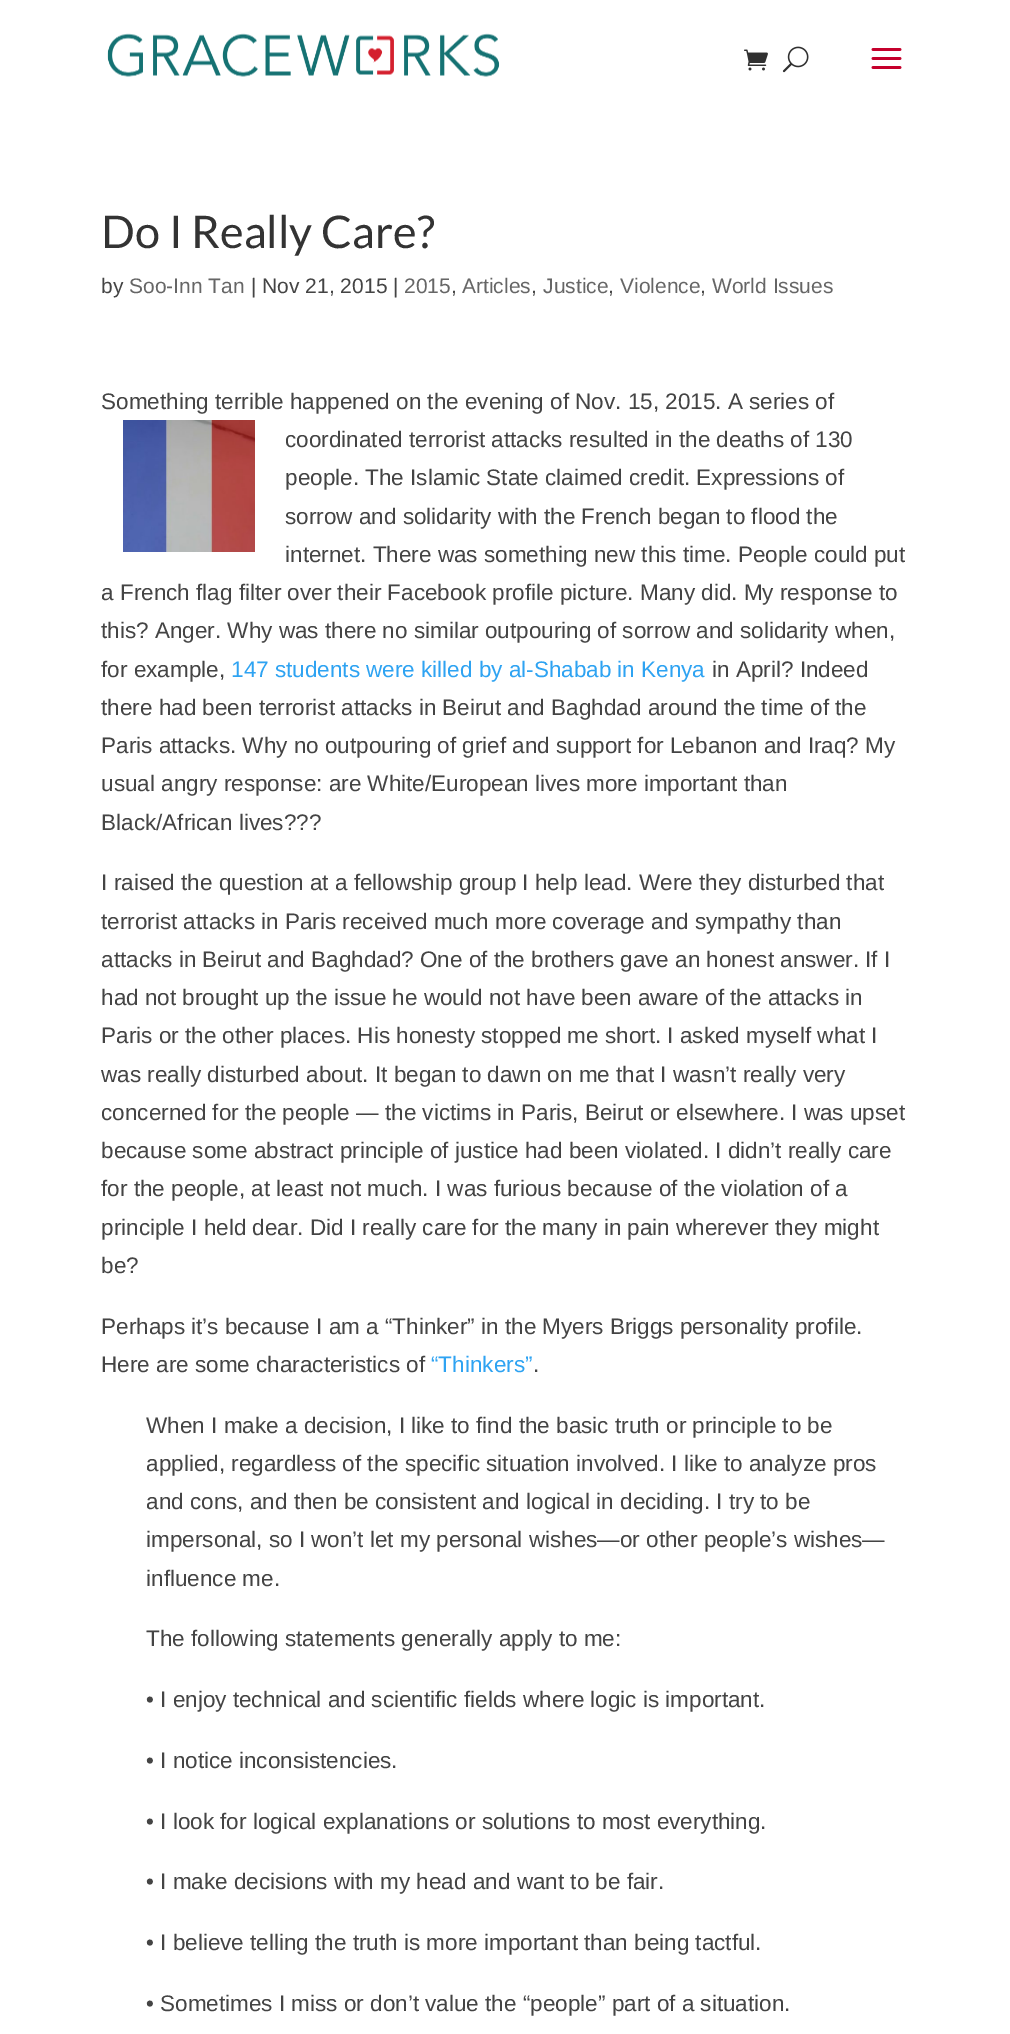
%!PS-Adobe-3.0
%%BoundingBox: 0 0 1010 2034
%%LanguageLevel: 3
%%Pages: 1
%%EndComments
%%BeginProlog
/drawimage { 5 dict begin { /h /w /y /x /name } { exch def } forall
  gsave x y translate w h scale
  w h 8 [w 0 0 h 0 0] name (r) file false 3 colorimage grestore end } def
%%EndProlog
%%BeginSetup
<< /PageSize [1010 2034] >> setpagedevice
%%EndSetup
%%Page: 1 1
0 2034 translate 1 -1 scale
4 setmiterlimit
1 setgray
0 0 1010 2034 rectfill
(images/1.raw) 107 33 393 44 drawimage
(images/2.raw) 744 49 24 22 drawimage
(images/3.raw) 782 46 27 27 drawimage
(images/4.raw) 871 48 31 21 drawimage
(images/5.raw) 123 420 132 132 drawimage
/Lato-Regular [45 0 0 -45 0 0] selectfont
0.2 setgray
101 248 moveto (Do I Really Care?) show
/Arimo-Regular [21 0 0 -21 0 0] selectfont
0.267 setgray
101 293 moveto (by) show
0.4 setgray
129 293 moveto (Soo-Inn Tan) show
0.267 setgray
251 293 moveto (| Nov 21, 2015 |) show
0.4 setgray
404 293 moveto (2015) show
0.267 setgray
451 293 moveto (,) show
0.4 setgray
462 293 moveto (Articles) show
0.267 setgray
531 293 moveto (,) show
0.4 setgray
543 293 moveto (Justice) show
0.267 setgray
608 293 moveto (,) show
0.4 setgray
620 293 moveto (Violence) show
0.267 setgray
700 293 moveto (,) show
0.4 setgray
712 293 moveto (World Issues) show
/Arimo-Regular [22.5 0 0 -22.5 0 0] selectfont
0.267 setgray
101 409 moveto (Something terrible happened on the evening of Nov. 15, 2015. A series of) show
285 447 moveto (coordinated terrorist attacks resulted in the deaths of 130) show
285 485 moveto (people. The Islamic State claimed credit. Expressions of) show
285 524 moveto (sorrow and solidarity with the French began to flood the) show
285 562 moveto (internet. There was something new this time. People could put) show
101 600 moveto (a French flag filter over their Facebook profile picture. Many did. My response to) show
101 638 moveto (this? Anger. Why was there no similar outpouring of sorrow and solidarity when,) show
101 677 moveto (for example,) show
0.18 0.639 0.949 setrgbcolor
231 677 moveto (147 students were killed by al-Shabab in Kenya) show
0.267 setgray
712 677 moveto (in April? Indeed) show
101 715 moveto (there had been terrorist attacks in Beirut and Baghdad around the time of the) show
101 753 moveto (Paris attacks. Why no outpouring of grief and support for Lebanon and Iraq? My) show
101 791 moveto (usual angry response: are White/European lives more important than) show
101 830 moveto (Black/African lives???) show
101 890 moveto (I raised the question at a fellowship group I help lead. Were they disturbed that) show
101 929 moveto (terrorist attacks in Paris received much more coverage and sympathy than) show
101 967 moveto (attacks in Beirut and Baghdad? One of the brothers gave an honest answer. If I) show
101 1005 moveto (had not brought up the issue he would not have been aware of the attacks in) show
101 1043 moveto (Paris or the other places. His honesty stopped me short. I asked myself what I) show
101 1082 moveto (was really disturbed about. It began to dawn on me that I wasn’t really very) show
101 1120 moveto (concerned for the people — the victims in Paris, Beirut or elsewhere. I was upset) show
101 1158 moveto (because some abstract principle of justice had been violated. I didn’t really care) show
101 1196 moveto (for the people, at least not much. I was furious because of the violation of a) show
101 1235 moveto (principle I held dear. Did I really care for the many in pain wherever they might) show
101 1273 moveto (be?) show
101 1334 moveto (Perhaps it’s because I am a “Thinker” in the Myers Briggs personality profile.) show
101 1372 moveto (Here are some characteristics of) show
0.18 0.639 0.949 setrgbcolor
431 1372 moveto (“Thinkers”) show
0.267 setgray
533 1372 moveto (.) show
146 1433 moveto (When I make a decision, I like to find the basic truth or principle to be) show
146 1471 moveto (applied, regardless of the specific situation involved. I like to analyze pros) show
146 1509 moveto (and cons, and then be consistent and logical in deciding. I try to be) show
146 1547 moveto (impersonal, so I won’t let my personal wishes—or other people’s wishes—) show
146 1586 moveto (influence me.) show
146 1646 moveto (The following statements generally apply to me:) show
146 1707 moveto (• I enjoy technical and scientific fields where logic is important.) show
146 1768 moveto (• I notice inconsistencies.) show
146 1829 moveto (• I look for logical explanations or solutions to most everything.) show
146 1889 moveto (• I make decisions with my head and want to be fair.) show
146 1950 moveto (• I believe telling the truth is more important than being tactful.) show
146 2011 moveto (• Sometimes I miss or don’t value the “people” part of a situation.) show
showpage
%%EOF
